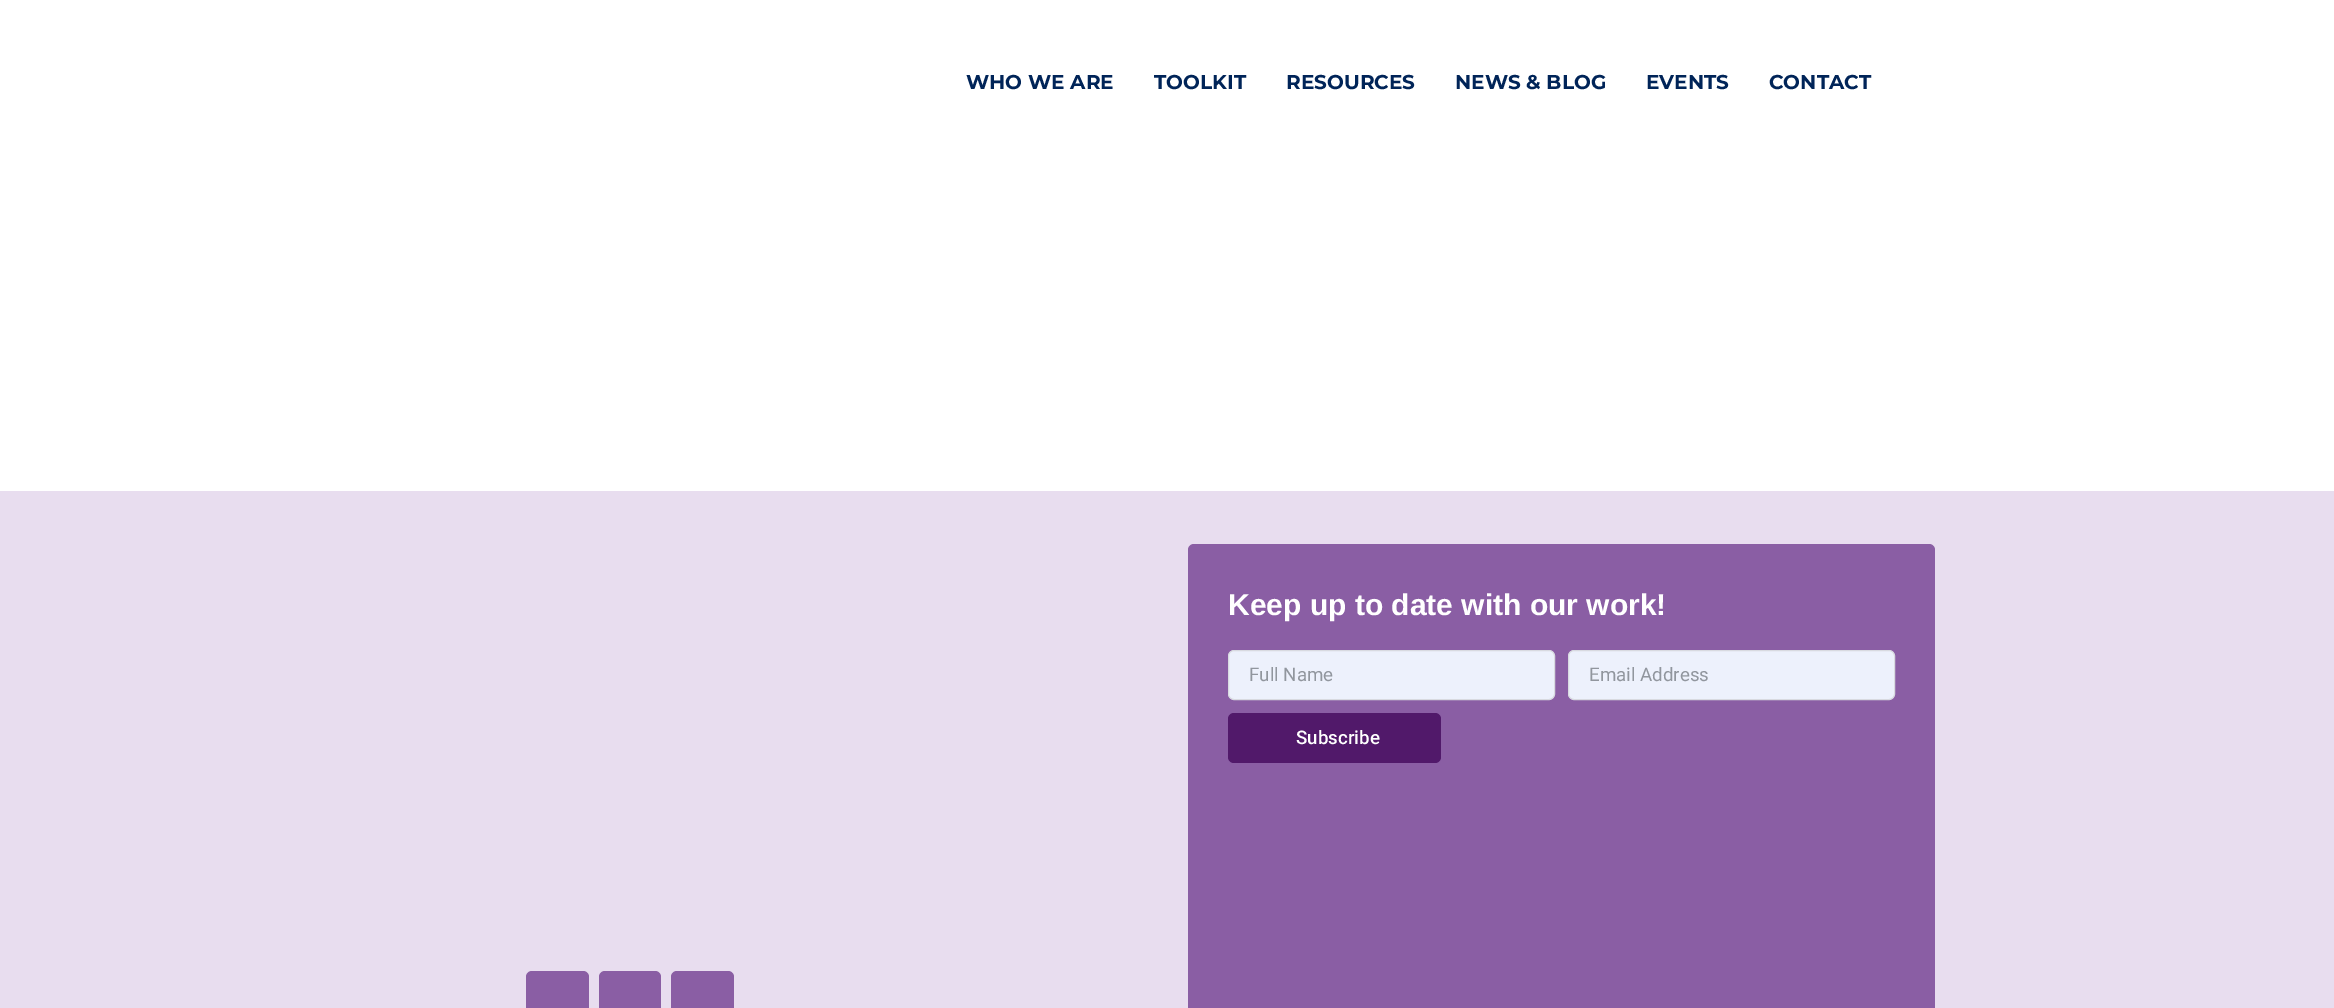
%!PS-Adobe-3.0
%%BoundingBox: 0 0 2334 1008
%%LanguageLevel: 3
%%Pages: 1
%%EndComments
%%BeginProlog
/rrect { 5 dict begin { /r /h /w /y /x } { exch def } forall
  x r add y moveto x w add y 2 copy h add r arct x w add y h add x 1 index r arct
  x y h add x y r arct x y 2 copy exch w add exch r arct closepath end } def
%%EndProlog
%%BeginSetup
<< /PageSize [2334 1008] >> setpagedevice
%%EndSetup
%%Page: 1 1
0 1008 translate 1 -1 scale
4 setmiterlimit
1 setgray
0 0 2334 1008 rectfill
0.91 0.867 0.937 setrgbcolor
0 491 2334 517 rectfill
0.541 0.369 0.643 setrgbcolor
1188 544 747 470 6 rrect fill
0.929 0.945 0.988 setrgbcolor
1228.5 650.5 326 49 5.5 rrect gsave fill grestore
0.847 0.855 0.878 setrgbcolor
stroke
0.929 0.945 0.988 setrgbcolor
1568.5 650.5 326 49 5.5 rrect gsave fill grestore
0.847 0.855 0.878 setrgbcolor
stroke
0.318 0.098 0.416 setrgbcolor
1228 713 213 50 6 rrect fill
0.541 0.369 0.643 setrgbcolor
526 971 63 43 6 rrect fill
599 971 62 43 6 rrect fill
671 971 63 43 6 rrect fill
/Montserrat-Bold [20 0 0 -20 0 0] selectfont
0 0.141 0.345 setrgbcolor
966 89 moveto (WHO WE ARE) show
1154 89 moveto (TOOLKIT) show
1286 89 moveto (RESOURCES) show
1455 89 moveto (NEWS & BLOG) show
1646 89 moveto (EVENTS) show
1769 89 moveto (CONTACT) show
/LiberationSans-Bold [30 0 0 -30 0 0] selectfont
1 setgray
1228 615 moveto (Keep up to date with our work!) show
/Roboto-Regular [18.75 0 0 -18.75 0 0] selectfont
0.569 0.588 0.62 setrgbcolor
1249 681 moveto (Full Name) show
1589 681 moveto (Email Address) show
/Roboto-Medium [18.75 0 0 -18.75 0 0] selectfont
1 setgray
1296 744 moveto (Subscribe) show
showpage
%%EOF
